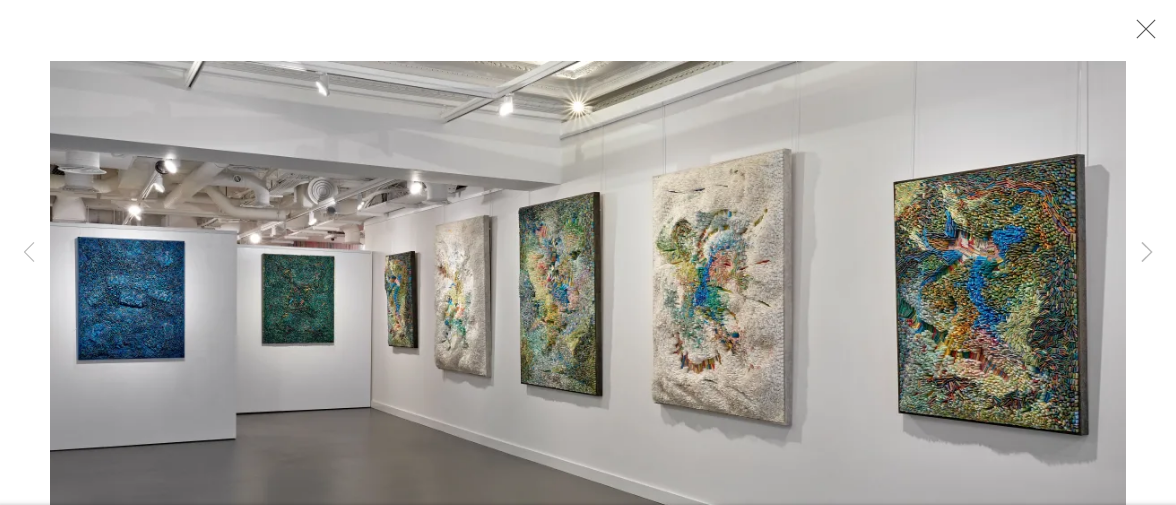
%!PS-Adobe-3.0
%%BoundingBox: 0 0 1176 505
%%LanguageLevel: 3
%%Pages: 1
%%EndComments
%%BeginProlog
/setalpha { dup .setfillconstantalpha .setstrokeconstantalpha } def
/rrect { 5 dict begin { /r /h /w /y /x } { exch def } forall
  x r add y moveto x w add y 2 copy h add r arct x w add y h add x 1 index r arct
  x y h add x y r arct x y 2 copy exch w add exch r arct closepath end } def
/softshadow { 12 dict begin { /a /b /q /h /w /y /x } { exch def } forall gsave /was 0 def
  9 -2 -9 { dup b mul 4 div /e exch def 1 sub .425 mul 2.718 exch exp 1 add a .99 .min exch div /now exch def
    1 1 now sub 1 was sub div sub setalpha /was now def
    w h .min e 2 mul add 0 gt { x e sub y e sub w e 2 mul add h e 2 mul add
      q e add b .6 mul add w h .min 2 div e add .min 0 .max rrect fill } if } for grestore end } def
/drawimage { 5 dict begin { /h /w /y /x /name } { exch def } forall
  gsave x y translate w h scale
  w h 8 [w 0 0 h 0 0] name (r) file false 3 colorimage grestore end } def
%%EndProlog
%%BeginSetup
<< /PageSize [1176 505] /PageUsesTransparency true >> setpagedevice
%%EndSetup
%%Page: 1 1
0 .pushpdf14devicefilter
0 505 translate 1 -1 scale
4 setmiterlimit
1 setgray
0 0 1176 505 rectfill
(images/1.raw) 1136 19 20 20 drawimage
(images/2.raw) 50 61 1076 444 drawimage
(images/3.raw) 24 242 11 20 drawimage
0.725 setgray
newpath 1152.5 252 moveto 1142.5 242 lineto 1141.5 243 lineto 1151 252 lineto 1141.5 261 lineto 1142.5 262 lineto closepath fill
0 setgray
0 505 1176 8 0 2.5 0.23 softshadow
.poppdf14devicefilter showpage
%%EOF
